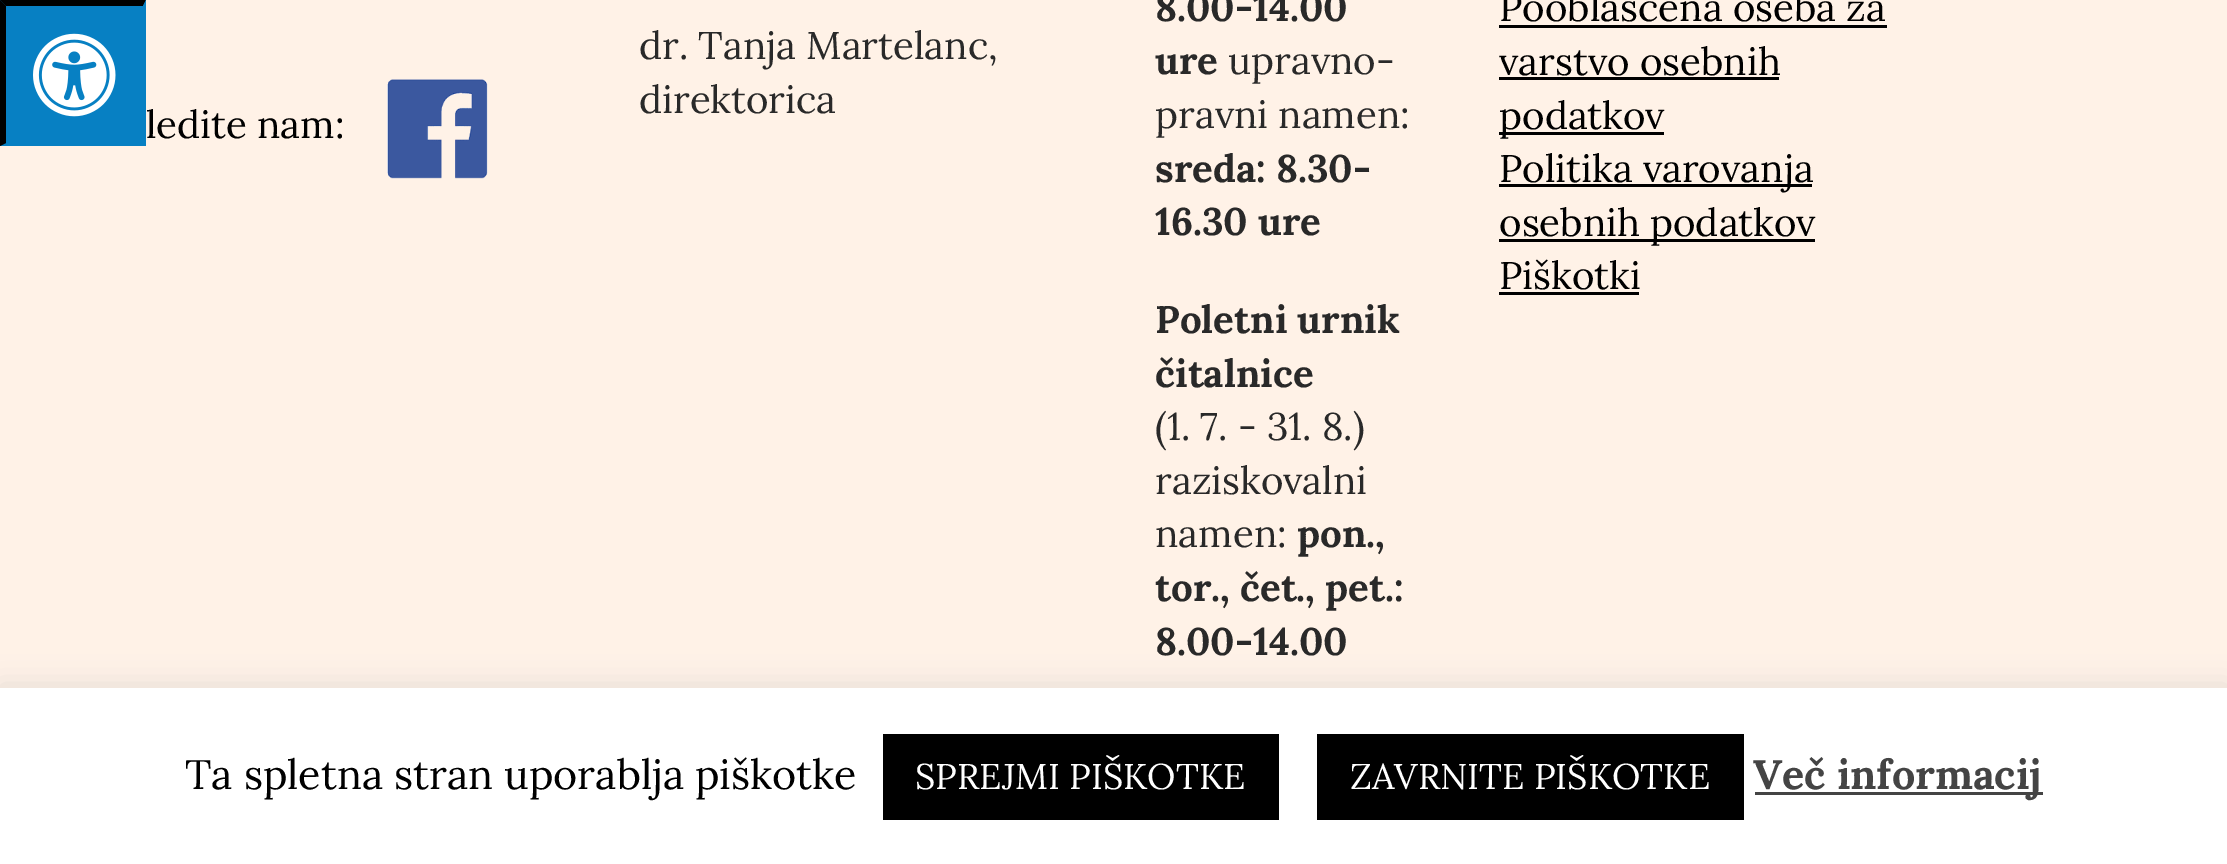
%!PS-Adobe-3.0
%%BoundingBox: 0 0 2227 864
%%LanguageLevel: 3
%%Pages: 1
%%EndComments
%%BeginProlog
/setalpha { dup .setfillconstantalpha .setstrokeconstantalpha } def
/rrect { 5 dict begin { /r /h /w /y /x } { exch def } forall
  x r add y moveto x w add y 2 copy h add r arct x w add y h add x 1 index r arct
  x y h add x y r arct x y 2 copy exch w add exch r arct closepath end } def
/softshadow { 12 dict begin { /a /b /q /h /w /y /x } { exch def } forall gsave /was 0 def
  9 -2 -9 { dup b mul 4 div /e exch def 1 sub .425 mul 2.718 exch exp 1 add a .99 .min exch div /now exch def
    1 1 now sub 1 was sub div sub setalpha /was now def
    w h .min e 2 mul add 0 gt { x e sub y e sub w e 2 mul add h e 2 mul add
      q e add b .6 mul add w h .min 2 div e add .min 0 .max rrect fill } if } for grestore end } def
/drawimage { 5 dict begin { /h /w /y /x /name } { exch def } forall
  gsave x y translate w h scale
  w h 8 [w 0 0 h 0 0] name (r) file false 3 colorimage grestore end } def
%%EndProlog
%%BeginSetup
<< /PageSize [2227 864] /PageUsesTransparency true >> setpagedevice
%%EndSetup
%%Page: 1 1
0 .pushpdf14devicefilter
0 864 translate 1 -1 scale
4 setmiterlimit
1 0.949 0.906 setrgbcolor
0 0 2227 864 rectfill
0.027 0.502 0.765 setrgbcolor
0 0 146 146 rectfill
0 setgray
newpath 0 0 moveto 146 0 lineto 143 6 lineto 6 6 lineto closepath fill
0.027 0.502 0.765 setrgbcolor
newpath 146 0 moveto 146 146 lineto 143 143 lineto 143 6 lineto closepath fill
0 setgray
newpath 0 146 moveto 0 0 lineto 6 6 lineto 6 143 lineto closepath fill
(images/1.raw) 33 33 83 84 drawimage
1499 25 388 3 rectfill
1499 77 280 3 rectfill
1499 132 165 3 rectfill
1499 184 313 3 rectfill
1499 239 316 3 rectfill
1499 292 140 3 rectfill
(images/2.raw) 387 79 101 100 drawimage
0.675 0.671 0.671 setrgbcolor
0 685 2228 179 0 14 0.3 softshadow
1 setgray
0 688 2227 176 rectfill
0 setgray
883 734 396 86 rectfill
1317 734 427 86 rectfill
0.267 setgray
1755 792 288 3 rectfill
/Lora-Regular [38.5 0 0 -38.5 0 0] selectfont
0.161 setgray
639 59 moveto (dr. Tanja Martelanc,) show
639 113 moveto (direktorica) show
/Lora-Bold [38.5 0 0 -38.5 0 0] selectfont
1155 21 moveto (8.00-14.00) show
1155 74 moveto (ure) show
/Lora-Regular [38.5 0 0 -38.5 0 0] selectfont
1228 74 moveto (upravno-) show
1155 128 moveto (pravni namen:) show
/Lora-Bold [38.5 0 0 -38.5 0 0] selectfont
1155 182 moveto (sreda: 8.30-) show
1155 235 moveto (16.30 ure) show
1155 333 moveto (Poletni urnik) show
1155 387 moveto (čitalnice) show
/Lora-Regular [38.5 0 0 -38.5 0 0] selectfont
1155 440 moveto (\(1. 7. - 31. 8.\)) show
1155 494 moveto (raziskovalni) show
1155 547 moveto (namen:) show
/Lora-Bold [38.5 0 0 -38.5 0 0] selectfont
1297 547 moveto (pon.,) show
1155 601 moveto (tor., čet., pet.:) show
1155 655 moveto (8.00-14.00) show
/Lora-Regular [38.5 0 0 -38.5 0 0] selectfont
0 setgray
1499 21 moveto (Pooblaščena oseba za) show
1499 75 moveto (varstvo osebnih) show
1499 129 moveto (podatkov) show
1499 182 moveto (Politika varovanja) show
1499 236 moveto (osebnih podatkov) show
1499 289 moveto (Piškotki) show
146 138 moveto (ledite nam:) show
/Lora-Regular [41.25 0 0 -41.25 0 0] selectfont
185 789 moveto (Ta spletna stran uporablja piškotke) show
/Lora-Regular [35.75 0 0 -35.75 0 0] selectfont
1 setgray
915 789 moveto (SPREJMI PIŠKOTKE) show
1350 789 moveto (ZAVRNITE PIŠKOTKE) show
/Lora-Bold [41.25 0 0 -41.25 0 0] selectfont
0.267 setgray
1753 789 moveto (Več informacij) show
.poppdf14devicefilter showpage
%%EOF
